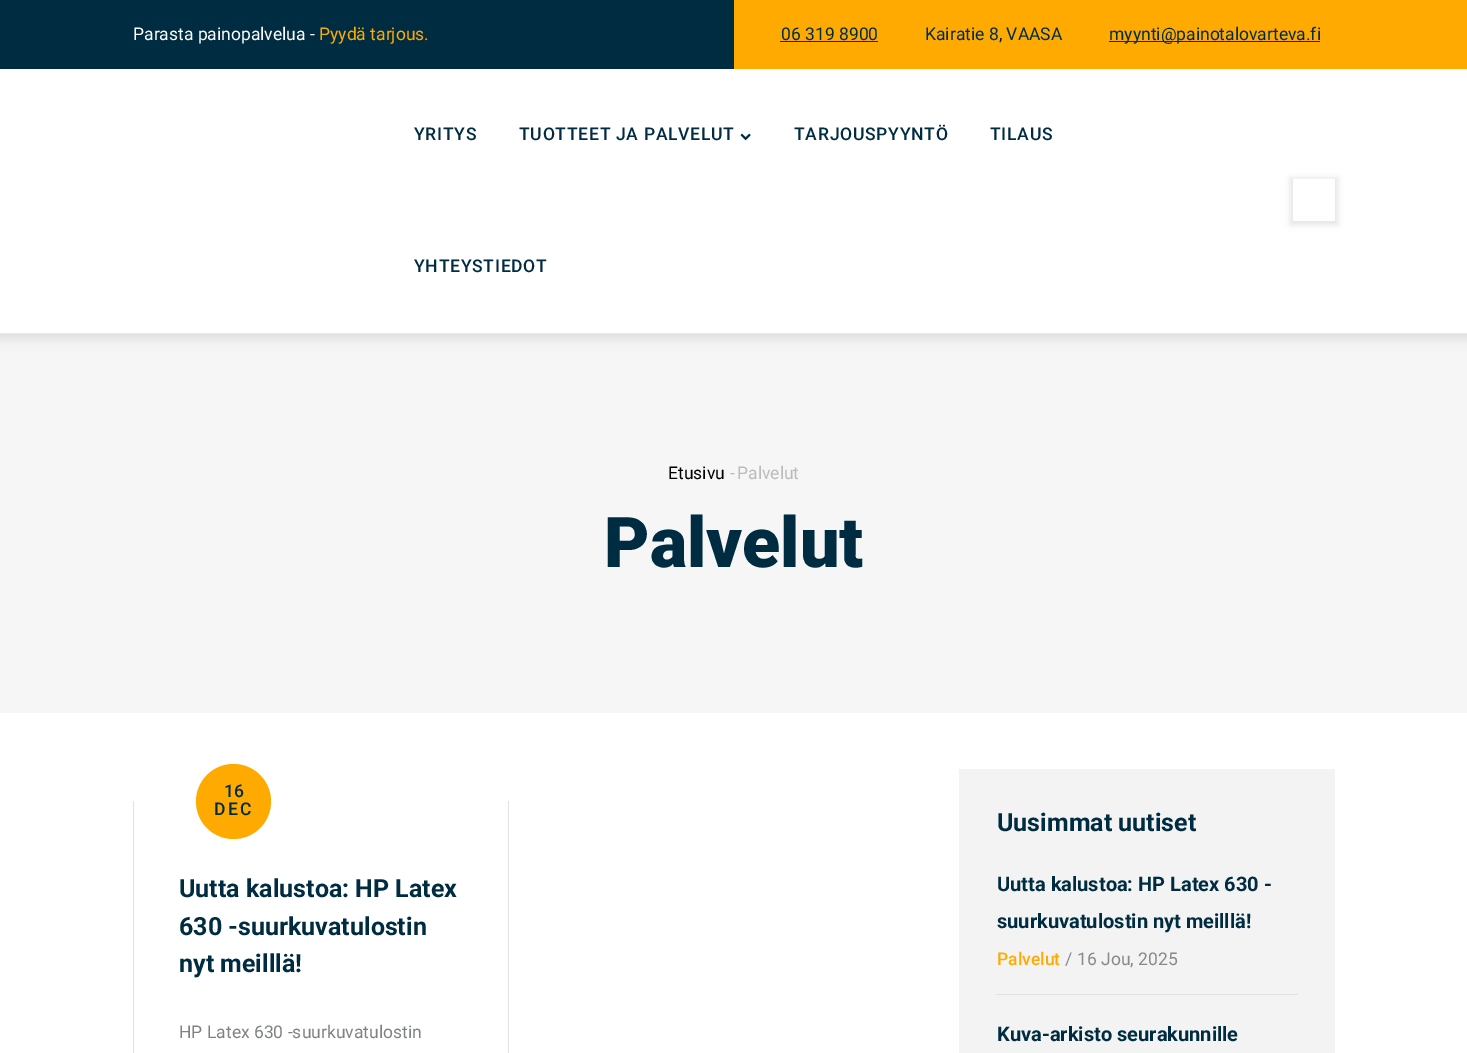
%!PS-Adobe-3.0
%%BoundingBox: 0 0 1467 1053
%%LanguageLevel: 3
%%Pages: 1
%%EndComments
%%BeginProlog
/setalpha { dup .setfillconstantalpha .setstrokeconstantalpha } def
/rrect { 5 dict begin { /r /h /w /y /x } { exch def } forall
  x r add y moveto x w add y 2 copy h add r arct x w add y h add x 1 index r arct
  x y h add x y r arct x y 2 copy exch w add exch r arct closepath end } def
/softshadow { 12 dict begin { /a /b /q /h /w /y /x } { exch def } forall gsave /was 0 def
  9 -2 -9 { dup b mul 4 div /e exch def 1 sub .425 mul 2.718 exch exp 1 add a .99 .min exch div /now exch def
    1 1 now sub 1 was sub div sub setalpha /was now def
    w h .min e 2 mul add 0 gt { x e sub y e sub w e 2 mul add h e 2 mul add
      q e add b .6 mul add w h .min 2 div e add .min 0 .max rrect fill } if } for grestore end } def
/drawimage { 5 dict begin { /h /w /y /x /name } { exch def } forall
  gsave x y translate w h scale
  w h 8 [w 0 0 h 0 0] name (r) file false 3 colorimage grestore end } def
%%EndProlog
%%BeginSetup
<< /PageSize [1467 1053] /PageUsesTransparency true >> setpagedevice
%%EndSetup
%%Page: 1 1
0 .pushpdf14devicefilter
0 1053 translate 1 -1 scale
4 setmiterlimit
1 setgray
0 0 1467 1053 rectfill
0.965 setgray
0 334 1467 379 rectfill
0 setgray
-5 -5 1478 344 0 6 0.1 softshadow
1 setgray
0 69 1467 264 rectfill
0.922 setgray
0 333 1 1 rectfill
0 0.173 0.259 setrgbcolor
0 0 734 69 rectfill
1 0.667 0.004 setrgbcolor
734 0 733 69 rectfill
0 0.173 0.259 setrgbcolor
780 41 98 1 rectfill
1109 41 211 1 rectfill
(images/1.raw) 740 133 11 8 drawimage
gsave
newpath 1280 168 moveto 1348 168 lineto 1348 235 lineto 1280 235 lineto closepath 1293 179 moveto 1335 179 lineto 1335 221 lineto 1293 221 lineto closepath eoclip newpath
0 setgray
1290 178 48 47 0 3 0.1 softshadow
grestore
0.871 0.886 0.902 setrgbcolor
508 801 1 252 rectfill
133 801 1 252 rectfill
1 0.667 0.004 setrgbcolor
newpath 233.5 801.5 37.5 0 360 arc closepath fill
0.953 setgray
959 769 376 284 rectfill
0.871 0.886 0.902 setrgbcolor
996 994 302 1 rectfill
/Roboto-Regular [17.5 0 0 -17.5 0 0] selectfont
1 setgray
133 40 moveto (Parasta painopalvelua -) show
1 0.667 0.004 setrgbcolor
319 40 moveto (Pyydä tarjous.) show
0 0.173 0.259 setrgbcolor
781 40 moveto (06 319 8900) show
925 40 moveto (Kairatie 8, VAASA) show
1109 40 moveto (myynti@painotalovarteva.fi) show
/Roboto-Medium [17.5 0 0 -17.5 0 0] selectfont
414 140 moveto 0.75 0 (YRITYS) ashow
519 140 moveto 0.75 0 (TUOTTEET JA PALVELUT) ashow
794 140 moveto 0.75 0 (TARJOUSPYYNTÖ) ashow
990 140 moveto 0.75 0 (TILAUS) ashow
414 272 moveto 0.75 0 (YHTEYSTIEDOT) ashow
/Roboto-Regular [17.5 0 0 -17.5 0 0] selectfont
0 setgray
668 479 moveto (Etusivu) show
0.733 setgray
730 479 moveto (-) show
737 479 moveto (Palvelut) show
/Roboto-Black [70 0 0 -70 0 0] selectfont
0 0.173 0.259 setrgbcolor
604 567 moveto (Palvelut) show
/Roboto-Medium [17.5 0 0 -17.5 0 0] selectfont
224 797 moveto (16) show
214 815 moveto 2.5 0 (DEC) ashow
/Roboto-Bold [25 0 0 -25 0 0] selectfont
179 897 moveto (Uutta kalustoa: HP Latex) show
179 935 moveto (630 -suurkuvatulostin) show
179 972 moveto (nyt meilllä!) show
/Roboto-Regular [17.5 0 0 -17.5 0 0] selectfont
0.498 0.51 0.518 setrgbcolor
179 1038 moveto (HP Latex 630 -suurkuvatulostin) show
/Roboto-Bold [25 0 0 -25 0 0] selectfont
0 0.173 0.259 setrgbcolor
997 831 moveto (Uusimmat uutiset) show
/Roboto-Bold [20 0 0 -20 0 0] selectfont
997 891 moveto (Uutta kalustoa: HP Latex 630 -) show
997 928 moveto (suurkuvatulostin nyt meilllä!) show
/Roboto-Medium [17.5 0 0 -17.5 0 0] selectfont
1 0.667 0.004 setrgbcolor
997 965 moveto (Palvelut) show
/Roboto-Regular [17.5 0 0 -17.5 0 0] selectfont
0.533 setgray
1065 965 moveto (/) show
1077 965 moveto (16 Jou, 2025) show
/Roboto-Bold [20 0 0 -20 0 0] selectfont
0 0.173 0.259 setrgbcolor
997 1041 moveto (Kuva-arkisto seurakunnille) show
.poppdf14devicefilter showpage
%%EOF
